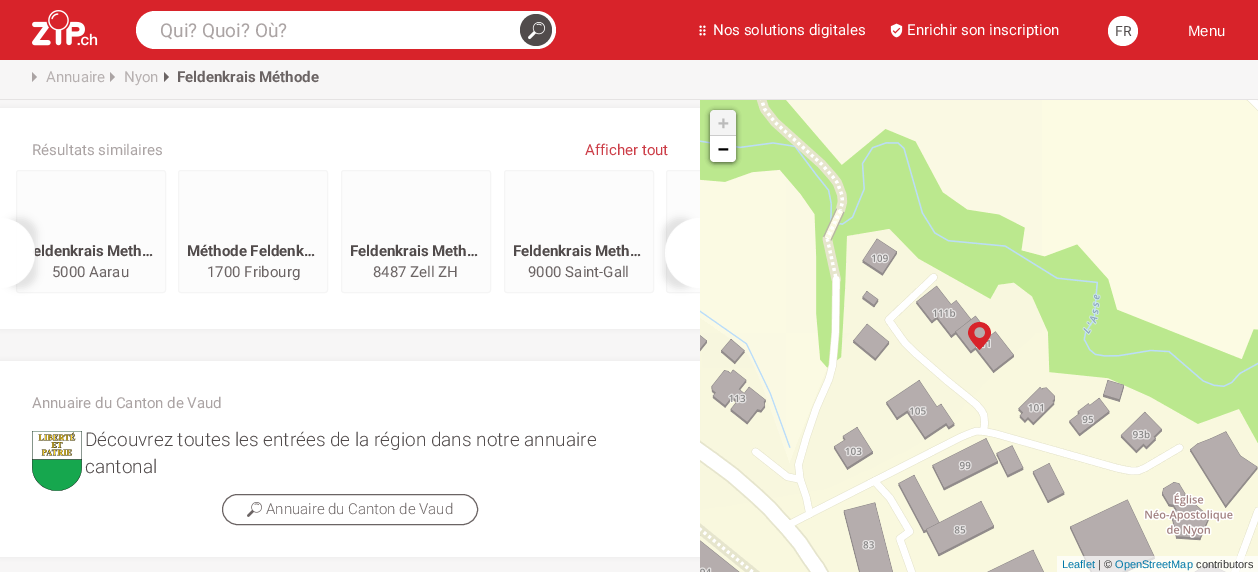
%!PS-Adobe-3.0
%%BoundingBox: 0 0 1258 572
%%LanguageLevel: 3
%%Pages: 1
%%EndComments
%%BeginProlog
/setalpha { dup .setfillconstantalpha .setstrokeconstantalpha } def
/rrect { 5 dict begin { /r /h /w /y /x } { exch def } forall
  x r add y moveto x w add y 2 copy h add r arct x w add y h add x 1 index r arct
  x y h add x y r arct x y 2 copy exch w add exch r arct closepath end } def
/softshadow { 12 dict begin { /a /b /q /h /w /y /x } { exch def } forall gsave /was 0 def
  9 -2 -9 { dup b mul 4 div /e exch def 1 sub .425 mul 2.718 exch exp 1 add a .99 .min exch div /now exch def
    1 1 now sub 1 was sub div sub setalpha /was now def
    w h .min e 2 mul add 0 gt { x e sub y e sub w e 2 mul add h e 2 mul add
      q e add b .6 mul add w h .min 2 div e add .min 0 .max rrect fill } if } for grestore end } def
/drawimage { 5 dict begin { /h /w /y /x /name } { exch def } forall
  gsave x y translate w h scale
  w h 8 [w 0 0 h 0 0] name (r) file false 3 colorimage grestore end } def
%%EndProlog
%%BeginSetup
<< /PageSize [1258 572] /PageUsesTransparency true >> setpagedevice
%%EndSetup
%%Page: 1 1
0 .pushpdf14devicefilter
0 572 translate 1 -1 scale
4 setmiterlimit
0.969 0.965 0.965 setrgbcolor
0 0 1258 572 rectfill
0.847 0.137 0.165 setrgbcolor
0 0 1258 60 rectfill
(images/1.raw) 32 10 66 36 drawimage
1 setgray
136 11 420 38 19 rrect fill
0.318 0.294 0.294 setrgbcolor
newpath 536 30 16 0 360 arc closepath fill
(images/2.raw) 528 22 18 18 drawimage
(images/3.raw) 699 25 7 11 drawimage
(images/4.raw) 890 23 13 15 drawimage
1 setgray
newpath 1123 31 15 0 360 arc closepath fill
0 setgray
0 108 700 221 0 3 0.05 softshadow
0.898 0.89 0.89 setrgbcolor
0 99 1258 1 rectfill
0.671 0.643 0.643 setrgbcolor
newpath 32 82 moveto 32 72 lineto 37 77 lineto closepath fill
newpath 110 82 moveto 110 72 lineto 115 77 lineto closepath fill
0.42 0.392 0.392 setrgbcolor
newpath 164 82 moveto 164 72 lineto 169 77 lineto closepath fill
1 setgray
0 108 700 221 rectfill
0.988 setgray
16.5 170.5 149 122 2.5 rrect gsave fill grestore
0.961 setgray
stroke
gsave
newpath 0 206 moveto 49 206 lineto 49 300 lineto 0 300 lineto closepath 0 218 moveto 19.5 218 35 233.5 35 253 curveto 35 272.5 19.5 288 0 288 curveto closepath eoclip newpath
0 setgray
2 218 35 70 35 3.5 0.1 softshadow
grestore
0.988 setgray
178.5 170.5 149 122 2.5 rrect gsave fill grestore
0.961 setgray
stroke
0.988 setgray
341.5 170.5 149 122 2.5 rrect gsave fill grestore
0.961 setgray
stroke
0.988 setgray
504.5 170.5 149 122 2.5 rrect gsave fill grestore
0.961 setgray
stroke
0.988 setgray
newpath 669 170 moveto 700 170 lineto 700 293 lineto 669 293 lineto 667.5 293 666 291.5 666 290 curveto 666 173 lineto 666 171.5 667.5 170 669 170 curveto closepath fill
0.961 setgray
666.5 170.5 149 122 2.5 rrect stroke
gsave
newpath 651 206 moveto 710 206 lineto 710 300 lineto 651 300 lineto closepath 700 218 moveto 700 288 lineto 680.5 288 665 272.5 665 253 curveto 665 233.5 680.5 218 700 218 curveto closepath eoclip newpath
0 setgray
663 218 35 70 35 3.5 0.1 softshadow
grestore
0.9 setalpha
1 setgray
newpath 700 218 moveto 700 288 lineto 680.5 288 665 272.5 665 253 curveto 665 233.5 680.5 218 700 218 curveto closepath fill
1 setalpha
0 setgray
0 361 700 196 0 3 0.05 softshadow
1 setgray
0 361 700 196 rectfill
(images/5.raw) 32 431 50 60 drawimage
0.42 0.392 0.392 setrgbcolor
222.5 494.5 255 30 15 rrect stroke
(images/6.raw) 247 502 15 15 drawimage
(images/7.raw) 700 100 86 233 drawimage
(images/8.raw) 786 100 256 233 drawimage
(images/9.raw) 1042 100 216 233 drawimage
(images/10.raw) 700 333 86 239 drawimage
(images/11.raw) 786 333 256 239 drawimage
(images/12.raw) 1042 333 216 239 drawimage
(images/13.raw) 968 322 23 28 drawimage
0 setgray
710 111 26 52 4 2.5 0.65 softshadow
0.957 setgray
newpath 714 110 moveto 732 110 lineto 734 110 736 112 736 114 curveto 736 136 lineto 710 136 lineto 710 114 lineto 710 112 712 110 714 110 curveto closepath fill
0.8 setgray
710 135 26 1 rectfill
1 setgray
newpath 710 136 moveto 736 136 lineto 736 158 lineto 736 160 734 162 732 162 curveto 714 162 lineto 712 162 710 160 710 158 curveto closepath fill
0.7 setalpha
1057 556 201 16 rectfill
/Roboto-Regular [19 0 0 -19 0 0] selectfont
1 setalpha
0.671 0.643 0.643 setrgbcolor
160 37 moveto (Qui? Quoi? Où?) show
/Roboto-Regular [15 0 0 -15 0 0] selectfont
1 setgray
713 35 moveto (Nos solutions digitales) show
907 35 moveto (Enrichir son inscription) show
/Roboto-Regular [14 0 0 -14 0 0] selectfont
0.318 0.294 0.294 setrgbcolor
1115 36 moveto (FR) show
/LiberationSans-Regular [15 0 0 -15 0 0] selectfont
1 setgray
1188 36 moveto (Menu) show
/Roboto-Regular [15 0 0 -15 0 0] selectfont
0.718 0.694 0.694 setrgbcolor
46 82 moveto (Annuaire) show
124 82 moveto (Nyon) show
/Roboto-Bold [15 0 0 -15 0 0] selectfont
0.42 0.392 0.392 setrgbcolor
177 82 moveto (Feldenkrais Méthode) show
/Roboto-Regular [15 0 0 -15 0 0] selectfont
0.671 0.643 0.643 setrgbcolor
32 155 moveto (Résultats similaires) show
0.8 0.239 0.278 setrgbcolor
585 155 moveto (Afficher tout) show
/Roboto-Bold [15 0 0 -15 0 0] selectfont
0.318 0.294 0.294 setrgbcolor
33 256 moveto (eldenkrais Meth…) show
0.9 setalpha
1 setgray
newpath 0 218 moveto 19.5 218 35 233.5 35 253 curveto 35 272.5 19.5 288 0 288 curveto closepath fill
/Roboto-Regular [15 0 0 -15 0 0] selectfont
1 setalpha
0.42 0.392 0.392 setrgbcolor
52 277 moveto (5000 Aarau) show
/Roboto-Bold [15 0 0 -15 0 0] selectfont
0.318 0.294 0.294 setrgbcolor
187 256 moveto (Méthode Feldenk…) show
/Roboto-Regular [15 0 0 -15 0 0] selectfont
0.42 0.392 0.392 setrgbcolor
207 277 moveto (1700 Fribourg) show
/Roboto-Bold [15 0 0 -15 0 0] selectfont
0.318 0.294 0.294 setrgbcolor
350 256 moveto (Feldenkrais Meth…) show
/Roboto-Regular [15 0 0 -15 0 0] selectfont
0.42 0.392 0.392 setrgbcolor
373 277 moveto (8487 Zell ZH) show
/Roboto-Bold [15 0 0 -15 0 0] selectfont
0.318 0.294 0.294 setrgbcolor
513 256 moveto (Feldenkrais Meth…) show
/Roboto-Regular [15 0 0 -15 0 0] selectfont
0.42 0.392 0.392 setrgbcolor
528 277 moveto (9000 Saint-Gall) show
0.671 0.643 0.643 setrgbcolor
32 408 moveto (Annuaire du Canton de Vaud) show
/Roboto-Light [19 0 0 -19 0 0] selectfont
0.318 0.294 0.294 setrgbcolor
85 446 moveto (Découvrez toutes les entrées de la région dans notre annuaire) show
85 473 moveto (cantonal) show
/Roboto-Light [15 0 0 -15 0 0] selectfont
0.42 0.392 0.392 setrgbcolor
266 514 moveto (Annuaire du Canton de Vaud) show
/DejaVuSansMono-Bold [18 0 0 -18 0 0] selectfont
0.733 setgray
718 129 moveto (+) show
0 setgray
718 155 moveto (−) show
/LiberationSans-Regular [11 0 0 -11 0 0] selectfont
0 0.471 0.659 setrgbcolor
1062 568 moveto (Leaflet) show
0.2 setgray
1098 568 moveto (| ©) show
0 0.471 0.659 setrgbcolor
1115 568 moveto (OpenStreetMap) show
0.2 setgray
1196 568 moveto (contributors) show
.poppdf14devicefilter showpage
%%EOF
